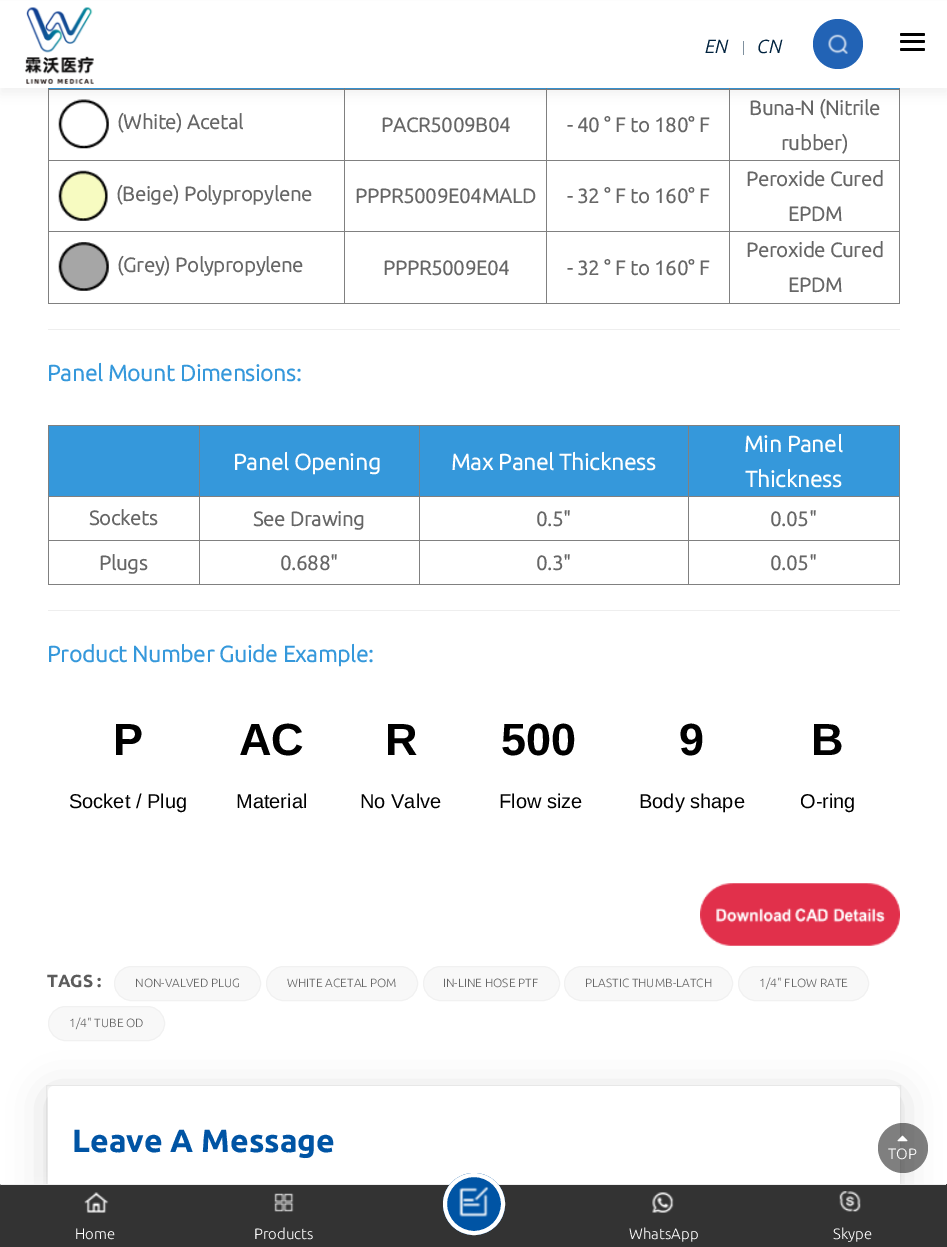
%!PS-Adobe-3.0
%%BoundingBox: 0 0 947 1247
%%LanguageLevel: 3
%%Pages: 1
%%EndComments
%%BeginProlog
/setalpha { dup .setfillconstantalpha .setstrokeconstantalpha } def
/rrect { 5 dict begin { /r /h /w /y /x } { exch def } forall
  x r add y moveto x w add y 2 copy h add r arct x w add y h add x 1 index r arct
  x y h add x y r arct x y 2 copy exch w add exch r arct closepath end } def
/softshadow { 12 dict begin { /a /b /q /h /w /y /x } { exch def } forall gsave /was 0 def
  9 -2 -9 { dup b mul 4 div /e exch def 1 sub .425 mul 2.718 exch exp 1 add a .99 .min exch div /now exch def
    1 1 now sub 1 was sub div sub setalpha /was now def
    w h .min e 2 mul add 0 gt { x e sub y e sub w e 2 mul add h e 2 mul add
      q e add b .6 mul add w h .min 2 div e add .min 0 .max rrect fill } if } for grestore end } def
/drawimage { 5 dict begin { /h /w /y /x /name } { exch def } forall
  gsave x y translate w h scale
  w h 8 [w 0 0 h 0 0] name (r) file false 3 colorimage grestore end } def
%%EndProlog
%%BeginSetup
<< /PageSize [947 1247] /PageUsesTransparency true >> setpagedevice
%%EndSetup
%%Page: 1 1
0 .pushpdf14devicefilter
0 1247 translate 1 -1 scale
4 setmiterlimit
1 setgray
0 0 947 1247 rectfill
0.502 setgray
899 88 1 216 rectfill
48 303 852 1 rectfill
48 88 1 216 rectfill
0.208 0.596 0.859 setrgbcolor
49 88 295 1 rectfill
345 88 384 1 rectfill
0.502 setgray
729 89 171 1 rectfill
729 160 171 1 rectfill
729 231 171 1 rectfill
729 231 1 73 rectfill
546 231 184 1 rectfill
729 160 1 73 rectfill
546 160 184 1 rectfill
729 89 1 72 rectfill
546 89 184 1 rectfill
546 231 1 73 rectfill
344 231 204 1 rectfill
546 160 1 73 rectfill
344 160 204 1 rectfill
546 89 1 72 rectfill
344 89 204 1 rectfill
344 231 1 73 rectfill
48 231 297 1 rectfill
344 160 1 73 rectfill
48 160 297 1 rectfill
344 89 1 72 rectfill
48 89 297 1 rectfill
344 88 1 2 rectfill
546 88 1 2 rectfill
0.208 0.596 0.859 setrgbcolor
730 88 169 1 rectfill
0.502 setgray
729 88 1 2 rectfill
(images/3.raw) 58 99 51 50 drawimage
0 setgray
0 6 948 88 0 6 0.05 softshadow
1 setgray
0 1 947 87 rectfill
(images/1.raw) 25 7 69 77 drawimage
0.498 0.565 0.62 setrgbcolor
743 41 1 14 rectfill
0.133 0.388 0.71 setrgbcolor
newpath 838 44 25 0 360 arc closepath fill
(images/2.raw) 828 34 20 20 drawimage
0 setgray
900 40 25 3 1.5 rrect fill
900 33 25 3 1.5 rrect fill
900 48 25 3 1.5 rrect fill
(images/4.raw) 58 170 50 51 drawimage
(images/5.raw) 58 242 51 49 drawimage
0.933 setgray
48 329 852 1 rectfill
0.502 setgray
48 425 852 1 rectfill
899 425 1 160 rectfill
48 584 852 1 rectfill
48 425 1 160 rectfill
0.208 0.596 0.859 setrgbcolor
49 426 850 70 rectfill
0.502 setgray
688 496 212 1 rectfill
688 540 212 1 rectfill
688 540 1 45 rectfill
419 540 270 1 rectfill
688 496 1 45 rectfill
419 496 270 1 rectfill
419 540 1 45 rectfill
199 540 221 1 rectfill
419 496 1 45 rectfill
199 496 221 1 rectfill
199 540 1 45 rectfill
48 540 152 1 rectfill
199 496 1 45 rectfill
48 496 152 1 rectfill
199 425 1 73 rectfill
419 425 1 73 rectfill
688 425 1 73 rectfill
0.933 setgray
48 610 852 1 rectfill
(images/6.raw) 700 883 200 63 drawimage
0.973 setgray
114.5 966.5 146 34 17 rrect gsave fill grestore
0.945 setgray
stroke
0.973 setgray
266.5 966.5 151 34 17 rrect gsave fill grestore
0.945 setgray
stroke
0.973 setgray
423.5 966.5 136 34 17 rrect gsave fill grestore
0.945 setgray
stroke
0.973 setgray
564.5 966.5 168 34 17 rrect gsave fill grestore
0.945 setgray
stroke
0.973 setgray
738.5 966.5 130 34 17 rrect gsave fill grestore
0.945 setgray
stroke
0.973 setgray
48.5 1006.5 116 34 17 rrect gsave fill grestore
0.945 setgray
stroke
0 setgray
48 1093 852 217 6 19 0.15 softshadow
0.05 setalpha
46.5 1085.5 854 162 rectstroke
1 setalpha
1 setgray
48 1086 852 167 6 rrect fill
0 1184 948 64 2.5 9.5 0.4 softshadow
0.5 setalpha
0 setgray
newpath 903 1148 25 0 360 arc closepath fill
1 setalpha
(images/7.raw) 897 1135 11 7 drawimage
0.2 setgray
newpath 2.5 1184 moveto 945.5 1184 lineto 947 1184 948 1185 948 1186.5 curveto 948 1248 lineto 0 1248 lineto 0 1186.5 lineto 0 1185 1 1184 2.5 1184 curveto closepath fill
0.933 setgray
1 1184 945 1 rectfill
0 0.329 0.643 setrgbcolor
newpath 474 1204 31 0 360 arc closepath fill
(images/8.raw) 459 1186 30 31 drawimage
1 setgray
4 setlinewidth
newpath 474 1204 29 0 360 arc closepath stroke
(images/9.raw) 84 1192 25 21 drawimage
(images/10.raw) 274 1193 20 19 drawimage
(images/11.raw) 652 1192 22 21 drawimage
(images/12.raw) 839 1191 22 21 drawimage
/Ubuntu-Italic [19 0 0 -19 0 0] selectfont
0 0.133 0.243 setrgbcolor
705 53 moveto (EN) show
757 53 moveto (CN) show
/Ubuntu-Bold [20 0 0 -20 0 0] selectfont
0.4 setgray
117 129 moveto (\(White\) Acetal) show
381 132 moveto (PACR5009B04) show
567 132 moveto (- 40 ° F to 180° F) show
749 115 moveto (Buna-N \(Nitrile) show
781 150 moveto (rubber\)) show
116 201 moveto (\(Beige\) Polypropylene) show
355 203 moveto (PPPR5009E04MALD) show
567 203 moveto (- 32 ° F to 160° F) show
746 186 moveto (Peroxide Cured) show
788 221 moveto (EPDM) show
117 272 moveto (\(Grey\) Polypropylene) show
383 275 moveto (PPPR5009E04) show
567 275 moveto (- 32 ° F to 160° F) show
746 257 moveto (Peroxide Cured) show
788 292 moveto (EPDM) show
/Ubuntu-Bold [22.5 0 0 -22.5 0 0] selectfont
0.208 0.596 0.859 setrgbcolor
47 381 moveto (Panel Mount Dimensions:) show
1 setgray
233 470 moveto (Panel Opening) show
451 470 moveto (Max Panel Thickness) show
744 452 moveto (Min Panel) show
745 487 moveto (Thickness) show
/Ubuntu-Bold [20 0 0 -20 0 0] selectfont
0.4 setgray
89 525 moveto (Sockets) show
253 526 moveto (See Drawing) show
536 526 moveto (0.5") show
770 526 moveto (0.05") show
99 570 moveto (Plugs) show
280 570 moveto (0.688") show
536 570 moveto (0.3") show
770 570 moveto (0.05") show
/Ubuntu-Bold [22.5 0 0 -22.5 0 0] selectfont
0.208 0.596 0.859 setrgbcolor
47 662 moveto (Product Number Guide Example:) show
/LiberationSans-Bold [45 0 0 -45 0 0] selectfont
0 setgray
113 755 moveto (P) show
239 755 moveto (AC) show
385 755 moveto (R) show
501 755 moveto (500) show
679 755 moveto (9) show
811 755 moveto (B) show
/LiberationSans-Regular [20 0 0 -20 0 0] selectfont
69 808 moveto (Socket / Plug) show
236 808 moveto (Material) show
360 808 moveto (No Valve) show
499 808 moveto (Flow size) show
639 808 moveto (Body shape) show
800 808 moveto (O-ring) show
/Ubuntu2-Bold [17.5 0 0 -17.5 0 0] selectfont
0.361 setgray
47 987 moveto (TAGS :) show
/Ubuntu-Light [12 0 0 -12 0 0] selectfont
0.4 setgray
135 987 moveto (NON-VALVED PLUG) show
287 987 moveto (WHITE ACETAL POM) show
443 987 moveto (IN-LINE HOSE PTF) show
585 987 moveto (PLASTIC THUMB-LATCH) show
759 987 moveto (1/4" FLOW RATE) show
69 1027 moveto (1/4" TUBE OD) show
/Ubuntu2-Bold [32 0 0 -32 0 0] selectfont
0 0.329 0.643 setrgbcolor
72 1152 moveto (Leave A Message) show
/Ubuntu-Light [15 0 0 -15 0 0] selectfont
1 setgray
888 1159 moveto (TOP) show
75 1239 moveto (Home) show
254 1239 moveto (Products) show
629 1239 moveto (WhatsApp) show
833 1239 moveto (Skype) show
.poppdf14devicefilter showpage
%%EOF
